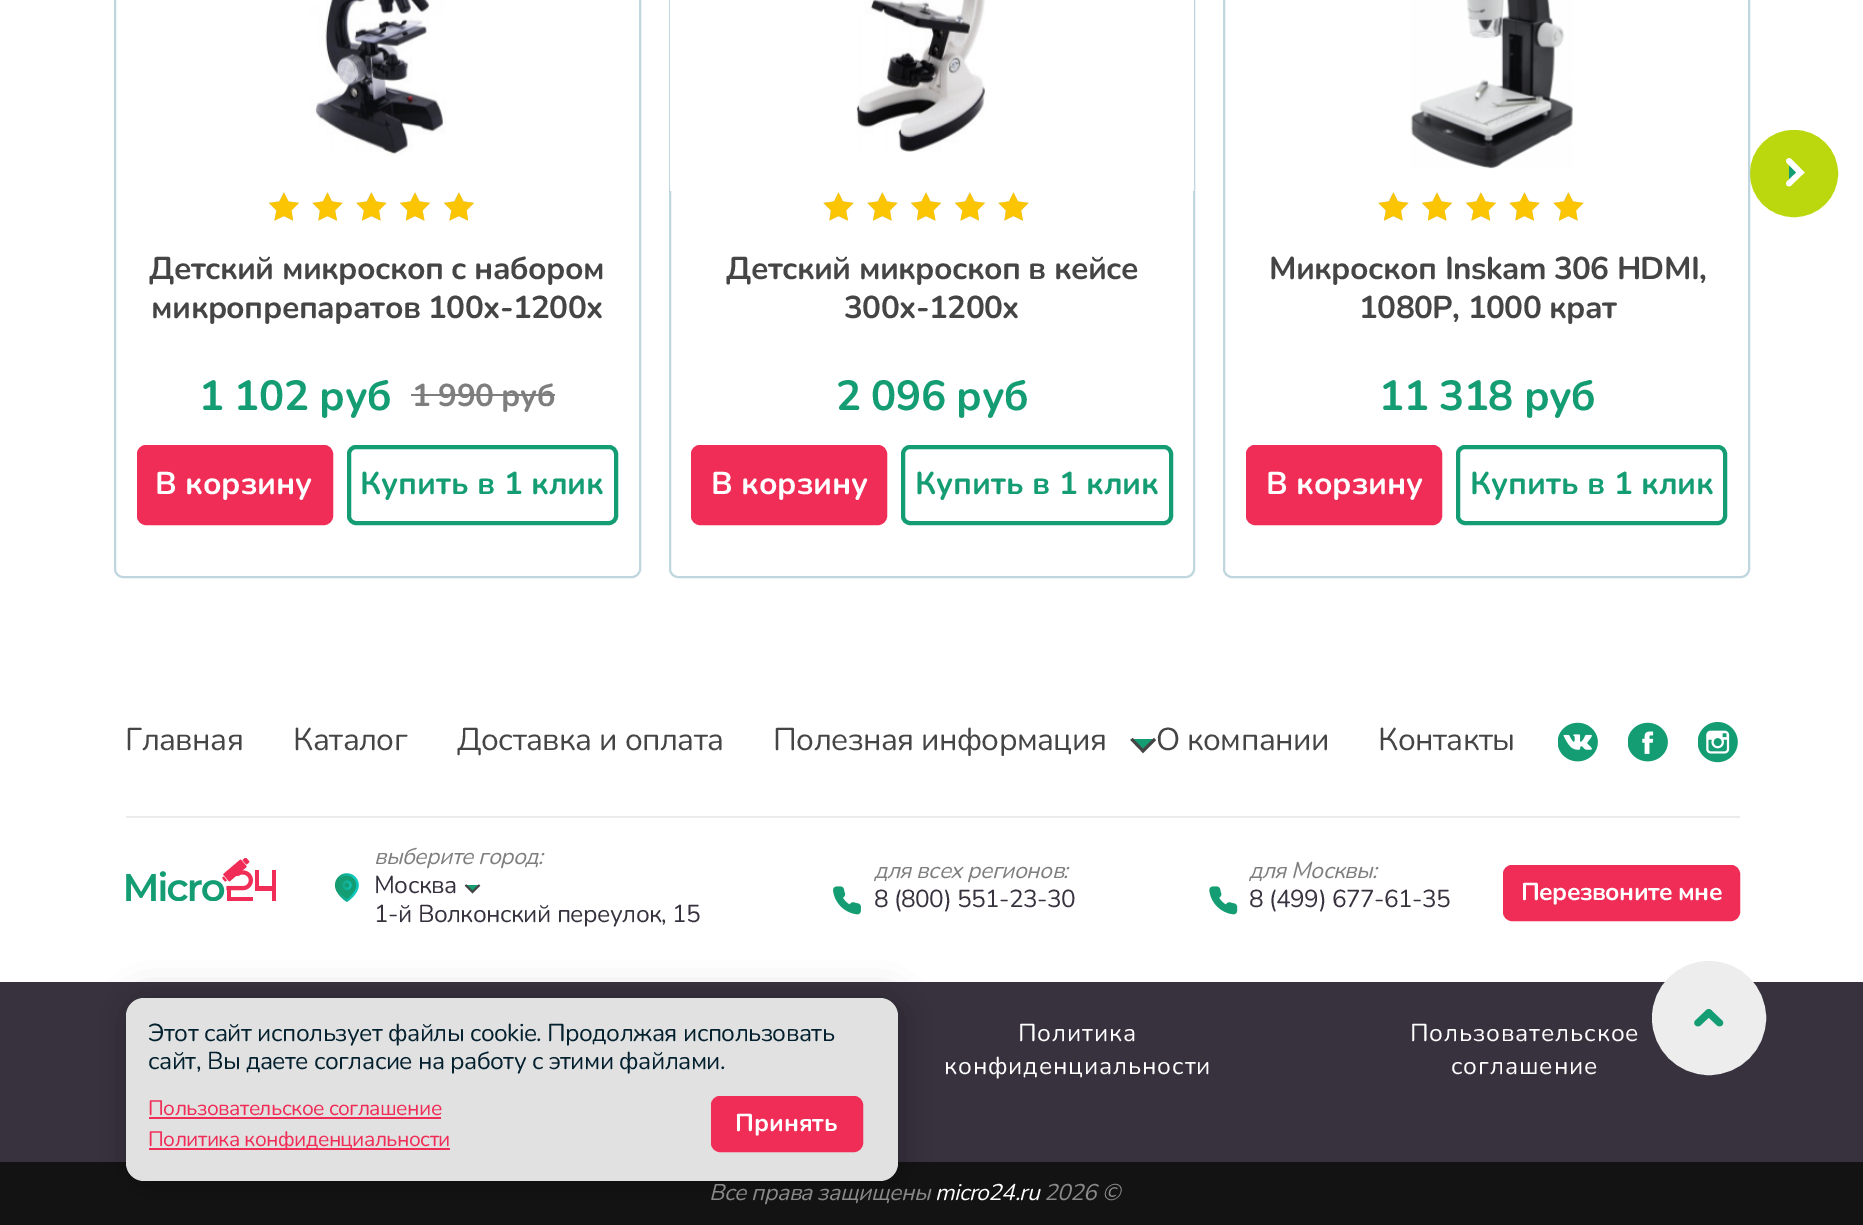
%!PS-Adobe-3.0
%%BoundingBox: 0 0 1863 1225
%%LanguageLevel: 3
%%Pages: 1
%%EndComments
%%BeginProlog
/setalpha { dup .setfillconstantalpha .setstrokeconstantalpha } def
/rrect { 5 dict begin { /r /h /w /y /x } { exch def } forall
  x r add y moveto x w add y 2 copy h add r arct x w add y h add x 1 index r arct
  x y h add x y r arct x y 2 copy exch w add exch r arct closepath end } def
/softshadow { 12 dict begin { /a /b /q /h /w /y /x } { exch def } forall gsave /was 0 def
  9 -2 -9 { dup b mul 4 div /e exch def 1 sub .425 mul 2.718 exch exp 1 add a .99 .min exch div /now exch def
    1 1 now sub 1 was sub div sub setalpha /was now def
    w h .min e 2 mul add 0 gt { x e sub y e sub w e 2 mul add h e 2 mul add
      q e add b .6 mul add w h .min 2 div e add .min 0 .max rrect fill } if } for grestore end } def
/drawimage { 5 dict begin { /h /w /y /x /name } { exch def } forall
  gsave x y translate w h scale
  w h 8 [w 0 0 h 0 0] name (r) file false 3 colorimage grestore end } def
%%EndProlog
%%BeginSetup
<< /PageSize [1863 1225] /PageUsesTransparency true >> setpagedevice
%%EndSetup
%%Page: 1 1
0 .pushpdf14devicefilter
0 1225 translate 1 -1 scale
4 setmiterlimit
1 setgray
0 0 1863 1225 rectfill
0.733 0.843 0.055 setrgbcolor
1752.5 132.5 83 82 41 rrect gsave fill grestore
5 setlinewidth
stroke
0.078 0.612 0.451 setrgbcolor
newpath 1789 183.5 moveto 1800.5 172.5 lineto 1789 161 lineto gsave fill grestore
1 setgray
5.7 setlinewidth
1 setlinecap
stroke
0.753 0.839 0.875 setrgbcolor
2 setlinewidth
0 setlinecap
115 -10 525 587 8 rrect stroke
(images/1.raw) 310 0 136 156 drawimage
newpath 283.5 192.5 moveto 288.5 201.5 lineto 298.5 203 lineto 291 210.5 lineto 293 220.5 lineto 283.5 216 lineto 274.5 220.5 lineto 276.5 210.5 lineto 269 203 lineto 279 201.5 lineto closepath fill
0.984 0.773 0.016 setrgbcolor
newpath 284 192.5 moveto 288.5 201.5 lineto 299 203 lineto 291.5 210.5 lineto 293 220.5 lineto 284 216 lineto 274.5 220.5 lineto 276.5 210.5 lineto 269 203 lineto 279.5 201.5 lineto closepath fill
0.753 0.839 0.875 setrgbcolor
newpath 327.5 192.5 moveto 332 201.5 lineto 342.5 203 lineto 335 210.5 lineto 336.5 220.5 lineto 327.5 216 lineto 318.5 220.5 lineto 320 210.5 lineto 312.5 203 lineto 323 201.5 lineto closepath fill
0.984 0.773 0.016 setrgbcolor
newpath 327.5 192.5 moveto 332 201.5 lineto 342.5 203 lineto 335 210.5 lineto 337 220.5 lineto 327.5 216 lineto 318.5 220.5 lineto 320 210.5 lineto 312.5 203 lineto 323 201.5 lineto closepath fill
0.753 0.839 0.875 setrgbcolor
newpath 371 192.5 moveto 376 201.5 lineto 386 203 lineto 378.5 210.5 lineto 380.5 220.5 lineto 371 216 lineto 362 220.5 lineto 364 210.5 lineto 356.5 203 lineto 366.5 201.5 lineto closepath fill
0.984 0.773 0.016 setrgbcolor
newpath 371.5 192.5 moveto 376 201.5 lineto 386.5 203 lineto 379 210.5 lineto 380.5 220.5 lineto 371.5 216 lineto 362 220.5 lineto 364 210.5 lineto 356.5 203 lineto 367 201.5 lineto closepath fill
0.753 0.839 0.875 setrgbcolor
newpath 415 192.5 moveto 419.5 201.5 lineto 430 203 lineto 422.5 210.5 lineto 424 220.5 lineto 415 216 lineto 406 220.5 lineto 407.5 210.5 lineto 400 203 lineto 410.5 201.5 lineto closepath fill
0.984 0.773 0.016 setrgbcolor
newpath 415 192.5 moveto 419.5 201.5 lineto 430 203 lineto 422.5 210.5 lineto 424.5 220.5 lineto 415 216 lineto 406 220.5 lineto 407.5 210.5 lineto 400 203 lineto 410.5 201.5 lineto closepath fill
0.753 0.839 0.875 setrgbcolor
newpath 458.5 192.5 moveto 463.5 201.5 lineto 473.5 203 lineto 466 210.5 lineto 468 220.5 lineto 458.5 216 lineto 449.5 220.5 lineto 451.5 210.5 lineto 444 203 lineto 454 201.5 lineto closepath fill
0.984 0.773 0.016 setrgbcolor
newpath 459 192.5 moveto 463.5 201.5 lineto 474 203 lineto 466.5 210.5 lineto 468 220.5 lineto 459 216 lineto 449.5 220.5 lineto 451.5 210.5 lineto 444 203 lineto 454.5 201.5 lineto closepath fill
0.494 setgray
411 394 144 2 rectfill
0.937 0.176 0.337 setrgbcolor
139 447 192 76 7 rrect gsave fill grestore
4 setlinewidth
stroke
0.078 0.612 0.451 setrgbcolor
349 447 267 76 7 rrect stroke
0.753 0.839 0.875 setrgbcolor
2 setlinewidth
670 -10 524 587 8 rrect stroke
1 setgray
670 0 524 191 rectfill
(images/2.raw) 856 0 130 152 drawimage
0.753 0.839 0.875 setrgbcolor
newpath 838.5 192.5 moveto 843 201.5 lineto 853.5 203 lineto 846 210.5 lineto 847.5 220.5 lineto 838.5 216 lineto 829.5 220.5 lineto 831 210.5 lineto 823.5 203 lineto 834 201.5 lineto closepath fill
0.984 0.773 0.016 setrgbcolor
newpath 838.5 192.5 moveto 843 201.5 lineto 853.5 203 lineto 846 210.5 lineto 848 220.5 lineto 838.5 216 lineto 829.5 220.5 lineto 831 210.5 lineto 823.5 203 lineto 834 201.5 lineto closepath fill
0.753 0.839 0.875 setrgbcolor
newpath 882 192.5 moveto 887 201.5 lineto 897 203 lineto 889.5 210.5 lineto 891.5 220.5 lineto 882 216 lineto 873 220.5 lineto 875 210.5 lineto 867.5 203 lineto 877.5 201.5 lineto closepath fill
0.984 0.773 0.016 setrgbcolor
newpath 882.5 192.5 moveto 887 201.5 lineto 897.5 203 lineto 890 210.5 lineto 891.5 220.5 lineto 882.5 216 lineto 873 220.5 lineto 875 210.5 lineto 867.5 203 lineto 878 201.5 lineto closepath fill
0.753 0.839 0.875 setrgbcolor
newpath 926 192.5 moveto 930.5 201.5 lineto 941 203 lineto 933.5 210.5 lineto 935 220.5 lineto 926 216 lineto 917 220.5 lineto 918.5 210.5 lineto 911 203 lineto 921.5 201.5 lineto closepath fill
0.984 0.773 0.016 setrgbcolor
newpath 926 192.5 moveto 930.5 201.5 lineto 941 203 lineto 933.5 210.5 lineto 935.5 220.5 lineto 926 216 lineto 917 220.5 lineto 918.5 210.5 lineto 911 203 lineto 921.5 201.5 lineto closepath fill
0.753 0.839 0.875 setrgbcolor
newpath 969.5 192.5 moveto 974.5 201.5 lineto 984.5 203 lineto 977 210.5 lineto 979 220.5 lineto 969.5 216 lineto 960.5 220.5 lineto 962.5 210.5 lineto 955 203 lineto 965 201.5 lineto closepath fill
0.984 0.773 0.016 setrgbcolor
newpath 970 192.5 moveto 974.5 201.5 lineto 985 203 lineto 977.5 210.5 lineto 979 220.5 lineto 970 216 lineto 960.5 220.5 lineto 962.5 210.5 lineto 955 203 lineto 965.5 201.5 lineto closepath fill
0.753 0.839 0.875 setrgbcolor
newpath 1013.5 192.5 moveto 1018 201.5 lineto 1028.5 203 lineto 1021 210.5 lineto 1022.5 220.5 lineto 1013.5 216 lineto 1004.5 220.5 lineto 1006 210.5 lineto 998.5 203 lineto 1009 201.5 lineto closepath fill
0.984 0.773 0.016 setrgbcolor
newpath 1013.5 192.5 moveto 1018 201.5 lineto 1028.5 203 lineto 1021 210.5 lineto 1023 220.5 lineto 1013.5 216 lineto 1004.5 220.5 lineto 1006 210.5 lineto 998.5 203 lineto 1009 201.5 lineto closepath fill
0.937 0.176 0.337 setrgbcolor
693 447 192 76 7 rrect gsave fill grestore
4 setlinewidth
stroke
0.078 0.612 0.451 setrgbcolor
903 447 268 76 7 rrect stroke
0.753 0.839 0.875 setrgbcolor
2 setlinewidth
1224 -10 525 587 8 rrect stroke
(images/3.raw) 1410 0 164 169 drawimage
newpath 1393 192.5 moveto 1398 201.5 lineto 1408 203 lineto 1400.5 210.5 lineto 1402.5 220.5 lineto 1393 216 lineto 1384 220.5 lineto 1386 210.5 lineto 1378.5 203 lineto 1388.5 201.5 lineto closepath fill
0.984 0.773 0.016 setrgbcolor
newpath 1393.5 192.5 moveto 1398 201.5 lineto 1408.5 203 lineto 1401 210.5 lineto 1402.5 220.5 lineto 1393.5 216 lineto 1384 220.5 lineto 1386 210.5 lineto 1378.5 203 lineto 1389 201.5 lineto closepath fill
0.753 0.839 0.875 setrgbcolor
newpath 1437 192.5 moveto 1441.5 201.5 lineto 1452 203 lineto 1444.5 210.5 lineto 1446 220.5 lineto 1437 216 lineto 1428 220.5 lineto 1429.5 210.5 lineto 1422 203 lineto 1432.5 201.5 lineto closepath fill
0.984 0.773 0.016 setrgbcolor
newpath 1437 192.5 moveto 1441.5 201.5 lineto 1452 203 lineto 1444.5 210.5 lineto 1446.5 220.5 lineto 1437 216 lineto 1428 220.5 lineto 1429.5 210.5 lineto 1422 203 lineto 1432.5 201.5 lineto closepath fill
0.753 0.839 0.875 setrgbcolor
newpath 1480.5 192.5 moveto 1485.5 201.5 lineto 1495.5 203 lineto 1488 210.5 lineto 1490 220.5 lineto 1480.5 216 lineto 1471.5 220.5 lineto 1473.5 210.5 lineto 1466 203 lineto 1476 201.5 lineto closepath fill
0.984 0.773 0.016 setrgbcolor
newpath 1481 192.5 moveto 1485.5 201.5 lineto 1496 203 lineto 1488.5 210.5 lineto 1490 220.5 lineto 1481 216 lineto 1471.5 220.5 lineto 1473.5 210.5 lineto 1466 203 lineto 1476.5 201.5 lineto closepath fill
0.753 0.839 0.875 setrgbcolor
newpath 1524.5 192.5 moveto 1529 201.5 lineto 1539.5 203 lineto 1532 210.5 lineto 1533.5 220.5 lineto 1524.5 216 lineto 1515.5 220.5 lineto 1517 210.5 lineto 1509.5 203 lineto 1520 201.5 lineto closepath fill
0.984 0.773 0.016 setrgbcolor
newpath 1524.5 192.5 moveto 1529 201.5 lineto 1539.5 203 lineto 1532 210.5 lineto 1534 220.5 lineto 1524.5 216 lineto 1515.5 220.5 lineto 1517 210.5 lineto 1509.5 203 lineto 1520 201.5 lineto closepath fill
0.753 0.839 0.875 setrgbcolor
newpath 1568 192.5 moveto 1573 201.5 lineto 1583 203 lineto 1575.5 210.5 lineto 1577.5 220.5 lineto 1568 216 lineto 1559 220.5 lineto 1561 210.5 lineto 1553.5 203 lineto 1563.5 201.5 lineto closepath fill
0.984 0.773 0.016 setrgbcolor
newpath 1568.5 192.5 moveto 1573 201.5 lineto 1583.5 203 lineto 1576 210.5 lineto 1577.5 220.5 lineto 1568.5 216 lineto 1559 220.5 lineto 1561 210.5 lineto 1553.5 203 lineto 1564 201.5 lineto closepath fill
0.937 0.176 0.337 setrgbcolor
1248 447 192 76 7 rrect gsave fill grestore
4 setlinewidth
stroke
0.078 0.612 0.451 setrgbcolor
1458 447 267 76 7 rrect stroke
newpath 1131.5 739 moveto 1143 751 lineto 1155 739 lineto gsave fill grestore
0.271 setgray
2.9 setlinewidth
stroke
(images/4.raw) 1558 722 40 40 drawimage
(images/5.raw) 1628 722 40 40 drawimage
(images/6.raw) 1698 722 40 41 drawimage
0.922 setgray
126 816 1614 2 rectfill
(images/7.raw) 126 858 150 43 drawimage
(images/8.raw) 334 873 25 29 drawimage
0.078 0.612 0.451 setrgbcolor
newpath 465.5 885 moveto 472.5 892 lineto 479.5 885 lineto gsave fill grestore
0.271 setgray
1.8 setlinewidth
stroke
(images/9.raw) 833 886 28 29 drawimage
(images/10.raw) 1209 886 29 29 drawimage
0.937 0.176 0.337 setrgbcolor
1505 867 233 52 7 rrect gsave fill grestore
4 setlinewidth
stroke
0.216 0.196 0.243 setrgbcolor
0 982 1863 180 rectfill
0.929 setgray
newpath 1709 1018 55 0 360 arc closepath gsave fill grestore
stroke
(images/11.raw) 1694 1009 30 18 drawimage
0.075 setgray
0 1162 1863 63 rectfill
0 setgray
128 999 775 188 19 17.5 0.25 softshadow
0.882 setgray
126 998 772 183 18 rrect fill
0.937 0.176 0.337 setrgbcolor
149 1117 292 2 rectfill
149 1148 301 2 rectfill
713 1098 148 52 7 rrect gsave fill grestore
stroke
/Nunito-Bold [31.5 0 0 -31.5 0 0] selectfont
0.271 setgray
149 279 moveto -0.55 0 (Детский микроскоп с набором) ashow
151 318 moveto -0.55 0 (микропрепаратов 100x-1200x) ashow
/Nunito-Bold [42 0 0 -42 0 0] selectfont
0.078 0.612 0.451 setrgbcolor
199 410 moveto -0.55 0 (1 102 руб) ashow
/Nunito-Bold [31.5 0 0 -31.5 0 0] selectfont
0.494 setgray
412 406 moveto -0.55 0 (1 990 руб) ashow
1 setgray
155 494 moveto (В корзину) show
0.078 0.612 0.451 setrgbcolor
360 494 moveto (Купить в 1 клик) show
0.271 setgray
726 279 moveto -0.55 0 (Детский микроскоп в кейсе) ashow
844 318 moveto -0.55 0 (300x-1200x) ashow
/Nunito-Bold [42 0 0 -42 0 0] selectfont
0.078 0.612 0.451 setrgbcolor
836 410 moveto -0.55 0 (2 096 руб) ashow
/Nunito-Bold [31.5 0 0 -31.5 0 0] selectfont
1 setgray
711 494 moveto (В корзину) show
0.078 0.612 0.451 setrgbcolor
915 494 moveto (Купить в 1 клик) show
0.271 setgray
1269 279 moveto -0.55 0 (Микроскоп Inskam 306 HDMI,) ashow
1359 318 moveto -0.55 0 (1080P, 1000 крат) ashow
/Nunito-Bold [42 0 0 -42 0 0] selectfont
0.078 0.612 0.451 setrgbcolor
1379 410 moveto -0.55 0 (11 318 руб) ashow
/Nunito-Bold [31.5 0 0 -31.5 0 0] selectfont
1 setgray
1266 494 moveto (В корзину) show
0.078 0.612 0.451 setrgbcolor
1470 494 moveto (Купить в 1 клик) show
/Nunito-Regular [31.5 0 0 -31.5 0 0] selectfont
0.271 setgray
125 750 moveto -0.55 0 (Главная) ashow
293 750 moveto -0.55 0 (Каталог) ashow
457 750 moveto -0.55 0 (Доставка и оплата) ashow
773 750 moveto -0.55 0 (Полезная информация) ashow
1156 750 moveto -0.55 0 (О компании) ashow
1378 750 moveto -0.55 0 (Контакты) ashow
/Nunito-Italic [22.75 0 0 -22.75 0 0] selectfont
0.494 setgray
374 864 moveto -0.55 0 (выберите город:) ashow
/Nunito-Regular [24.5 0 0 -24.5 0 0] selectfont
0.216 0.196 0.243 setrgbcolor
374 893 moveto -0.55 0 (Москва) ashow
374 922 moveto -0.55 0 (1-й Волконский переулок, 15) ashow
/Nunito-Italic [22.75 0 0 -22.75 0 0] selectfont
0.494 setgray
874 878 moveto -0.55 0 (для всех регионов:) ashow
/Nunito-Regular [24.5 0 0 -24.5 0 0] selectfont
0.216 0.196 0.243 setrgbcolor
874 907 moveto -0.55 0 (8 \(800\) 551-23-30) ashow
/Nunito-Italic [22.75 0 0 -22.75 0 0] selectfont
0.494 setgray
1249 878 moveto -0.55 0 (для Москвы:) ashow
/Nunito-Regular [24.5 0 0 -24.5 0 0] selectfont
0.216 0.196 0.243 setrgbcolor
1249 907 moveto -0.55 0 (8 \(499\) 677-61-35) ashow
/Nunito-Bold [24.5 0 0 -24.5 0 0] selectfont
1 setgray
1521 900 moveto -0.55 0 (Перезвоните мне) ashow
/Nunito-Regular [24.5 0 0 -24.5 0 0] selectfont
1018 1041 moveto 0.9 0 (Политика) ashow
944 1074 moveto 0.9 0 (конфиденциальности) ashow
1410 1041 moveto 0.9 0 (Пользовательское) ashow
1451 1074 moveto 0.9 0 (соглашение) ashow
/Nunito-Italic [22.75 0 0 -22.75 0 0] selectfont
0.537 setgray
709 1200 moveto -0.55 0 (Все права защищены) ashow
1 setgray
935 1200 moveto -0.55 0 (micro24.ru) ashow
0.537 setgray
1044 1200 moveto -0.55 0 (2026 ©) ashow
/Nunito-Regular [24.5 0 0 -24.5 0 0] selectfont
0.012 0.125 0.18 setrgbcolor
148 1041 moveto -0.55 0 (Этот сайт использует файлы cookie. Продолжая использовать) ashow
148 1069 moveto -0.55 0 (сайт, Вы даете согласие на работу с этими файлами.) ashow
/Nunito-Regular [21 0 0 -21 0 0] selectfont
0.937 0.176 0.337 setrgbcolor
148 1115 moveto -0.55 0 (Пользовательское соглашение) ashow
148 1146 moveto -0.55 0 (Политика конфиденциальности) ashow
/Nunito-Bold [24.5 0 0 -24.5 0 0] selectfont
1 setgray
735 1131 moveto (Принять) show
.poppdf14devicefilter showpage
%%EOF
